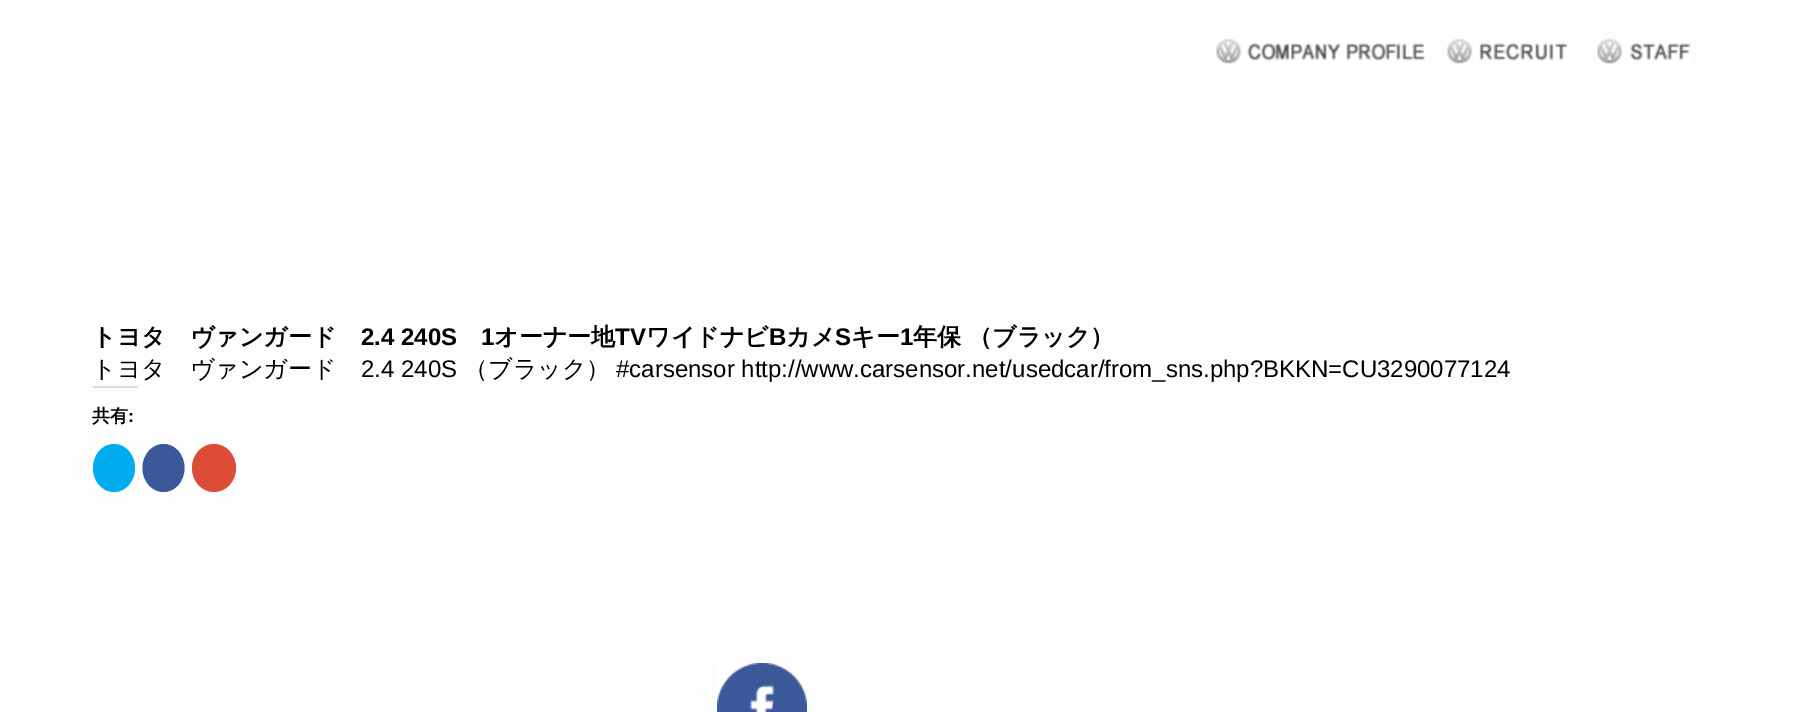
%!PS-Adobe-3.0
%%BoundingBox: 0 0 1804 712
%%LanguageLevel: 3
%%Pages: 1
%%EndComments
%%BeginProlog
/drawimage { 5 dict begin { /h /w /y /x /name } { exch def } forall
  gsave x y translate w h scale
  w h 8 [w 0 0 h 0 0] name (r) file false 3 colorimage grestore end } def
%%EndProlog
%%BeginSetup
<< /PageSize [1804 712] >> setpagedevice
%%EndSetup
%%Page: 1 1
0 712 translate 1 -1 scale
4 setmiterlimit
0.992 setgray
0 0 1804 712 rectfill
(images/1.raw) 1216 38 210 26 drawimage
(images/2.raw) 1447 38 121 26 drawimage
(images/3.raw) 1597 38 94 27 drawimage
0.867 setgray
93 386 45 2 rectfill
0 0.675 0.933 setrgbcolor
newpath 114 444 moveto 125.5 444 135 454.5 135 468 curveto 135 481.5 125.5 492 114 492 curveto 102.5 492 93 481.5 93 468 curveto 93 454.5 102.5 444 114 444 curveto closepath fill
0.231 0.349 0.596 setrgbcolor
newpath 163.5 444 moveto 175 444 184.5 454.5 184.5 468 curveto 184.5 481.5 175 492 163.5 492 curveto 152 492 142.5 481.5 142.5 468 curveto 142.5 454.5 152 444 163.5 444 curveto closepath fill
0.867 0.294 0.224 setrgbcolor
newpath 214 444 moveto 226 444 236 454.5 236 468 curveto 236 481.5 226 492 214 492 curveto 202 492 192 481.5 192 468 curveto 192 454.5 202 444 214 444 curveto closepath fill
(images/4.raw) 717 663 90 49 drawimage
/WenQuanYiZenHei-Bold [24 0 0 -24 0 0] selectfont
0 setgray
92 345 moveto (トヨタ　ヴァンガード) show
/LiberationSans-Bold [24 0 0 -24 0 0] selectfont
361 345 moveto (2.4 240S) show
481 345 moveto (1) show
/WenQuanYiZenHei-Bold [24 0 0 -24 0 0] selectfont
494 345 moveto (オーナー地) show
/LiberationSans-Bold [24 0 0 -24 0 0] selectfont
615 345 moveto (TV) show
/WenQuanYiZenHei-Bold [24 0 0 -24 0 0] selectfont
646 345 moveto (ワイドナビ) show
/LiberationSans-Bold [24 0 0 -24 0 0] selectfont
769 345 moveto (B) show
/WenQuanYiZenHei-Bold [24 0 0 -24 0 0] selectfont
786 345 moveto (カメ) show
/LiberationSans-Bold [24 0 0 -24 0 0] selectfont
835 345 moveto (S) show
/WenQuanYiZenHei-Bold [24 0 0 -24 0 0] selectfont
851 345 moveto (キー) show
/LiberationSans-Bold [24 0 0 -24 0 0] selectfont
900 345 moveto (1) show
/WenQuanYiZenHei-Bold [24 0 0 -24 0 0] selectfont
913 345 moveto (年保) show
968 345 moveto (（ブラック）) show
/WenQuanYiZenHei-Medium [24 0 0 -24 0 0] selectfont
92 377 moveto (トヨタ　ヴァンガード) show
/LiberationSans-Regular [24 0 0 -24 0 0] selectfont
361 377 moveto (2.4 240S) show
/WenQuanYiZenHei-Medium [24 0 0 -24 0 0] selectfont
464 377 moveto (（ブラック）) show
/LiberationSans-Regular [24 0 0 -24 0 0] selectfont
616 377 moveto (#carsensor http://www.carsensor.net/usedcar/from_sns.php?BKKN=CU3290077124) show
/WenQuanYiZenHei-Bold [18 0 0 -18 0 0] selectfont
92 422 moveto (共有) show
/LiberationSans-Bold [18 0 0 -18 0 0] selectfont
128 422 moveto (:) show
showpage
%%EOF
